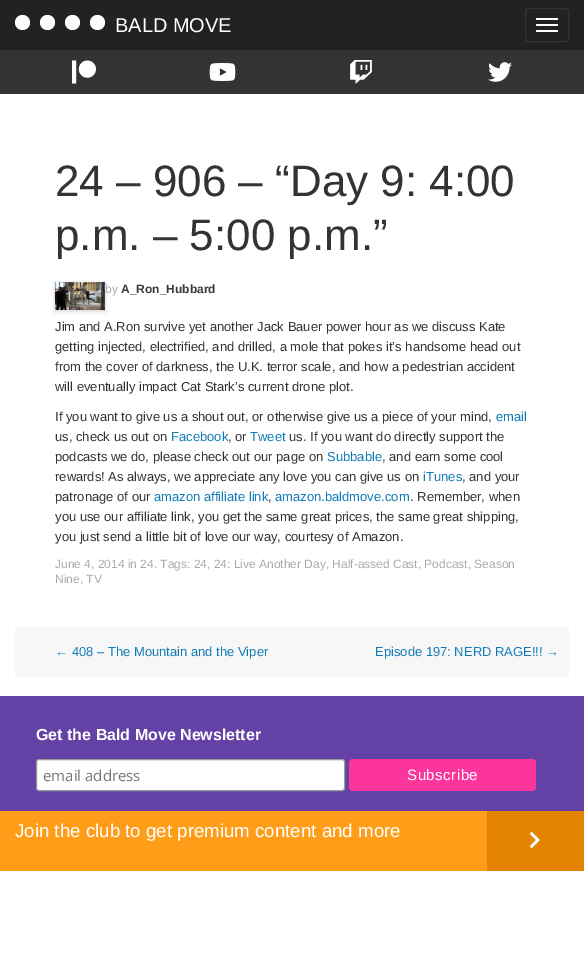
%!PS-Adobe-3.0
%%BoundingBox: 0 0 584 963
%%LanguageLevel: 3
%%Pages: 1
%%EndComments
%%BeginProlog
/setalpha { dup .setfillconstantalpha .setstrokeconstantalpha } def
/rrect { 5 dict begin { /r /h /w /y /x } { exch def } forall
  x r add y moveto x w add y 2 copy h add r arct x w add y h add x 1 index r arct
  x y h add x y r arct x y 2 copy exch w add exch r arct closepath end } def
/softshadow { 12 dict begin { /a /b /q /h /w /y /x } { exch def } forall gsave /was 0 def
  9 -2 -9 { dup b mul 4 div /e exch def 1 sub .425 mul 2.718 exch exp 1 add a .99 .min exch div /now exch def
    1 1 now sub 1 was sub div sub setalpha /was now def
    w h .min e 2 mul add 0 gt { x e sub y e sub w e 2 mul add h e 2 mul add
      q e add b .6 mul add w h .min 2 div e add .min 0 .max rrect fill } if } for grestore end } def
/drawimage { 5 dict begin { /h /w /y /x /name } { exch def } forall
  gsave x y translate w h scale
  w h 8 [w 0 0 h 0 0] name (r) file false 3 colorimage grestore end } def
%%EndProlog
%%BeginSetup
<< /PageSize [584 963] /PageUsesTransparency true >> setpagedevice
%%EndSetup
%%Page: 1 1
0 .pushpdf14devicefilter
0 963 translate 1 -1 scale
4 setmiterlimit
0.2 setgray
0 0 584 963 rectfill
0.133 setgray
0 0 584 50 rectfill
1 setgray
newpath 22.5 22.5 7.5 0 360 arc closepath fill
newpath 47.5 22.5 7.5 0 360 arc closepath fill
newpath 72.5 22.5 7.5 0 360 arc closepath fill
newpath 97.5 22.5 7.5 0 360 arc closepath fill
0.2 setgray
525.5 8.5 43 33 3.5 rrect stroke
1 setgray
536 18 22 2 1 rrect fill
536 24 22 2 1 rrect fill
536 30 22 2 1 rrect fill
(images/1.raw) 72 60 24 24 drawimage
(images/2.raw) 209 63 27 18 drawimage
(images/3.raw) 350 60 22 24 drawimage
(images/4.raw) 488 62 24 20 drawimage
0 94 584 869 rectfill
0 setgray
55 283 50 28 0 2 0.2 softshadow
(images/5.raw) 55 282 50 28 drawimage
0.969 setgray
15 627 554 50 rectfill
0.392 0.255 0.647 setrgbcolor
0 696 584 115 rectfill
1 setgray
36.5 759.5 308 31 2.5 rrect gsave fill grestore
0.6 setgray
stroke
0.988 0.208 0.616 setrgbcolor
349 759 187 32 4 rrect fill
1 0.616 0.094 setrgbcolor
0 811 487 60 rectfill
0.894 0.514 0 setrgbcolor
487 811 97 60 rectfill
(images/6.raw) 530 832 10 16 drawimage
/LiberationSans-Regular [20 0 0 -20 0 0] selectfont
1 setgray
115 32 moveto (BALD MOVE) show
/LiberationSans-Regular [44 0 0 -44 0 0] selectfont
0.2 setgray
55 196 moveto (24 – 906 – “Day 9: 4:00) show
55 250 moveto (p.m. – 5:00 p.m.”) show
/LiberationSans-Regular [12 0 0 -12 0 0] selectfont
0.667 setgray
105 293 moveto (by) show
/LiberationSans-Bold [12 0 0 -12 0 0] selectfont
0.227 setgray
121 293 moveto (A_Ron_Hubbard) show
/LiberationSans-Regular [13 0 0 -13 0 0] selectfont
0.2 setgray
55 331 moveto (Jim and A.Ron survive yet another Jack Bauer power hour as we discuss Kate) show
55 351 moveto (getting injected, electrified, and drilled, a mole that pokes it’s handsome head out) show
55 371 moveto (from the cover of darkness, the U.K. terror scale, and how a pedestrian accident) show
55 391 moveto (will eventually impact Cat Stark’s current drone plot.) show
55 421 moveto (If you want to give us a shout out, or otherwise give us a piece of your mind,) show
0.067 0.482 0.722 setrgbcolor
496 421 moveto (email) show
0.2 setgray
55 441 moveto (us, check us out on) show
0.067 0.482 0.722 setrgbcolor
171 441 moveto (Facebook) show
0.2 setgray
228 441 moveto (, or) show
0.067 0.482 0.722 setrgbcolor
250 441 moveto (Tweet) show
0.2 setgray
289 441 moveto (us. If you want do directly support the) show
55 461 moveto (podcasts we do, please check out our page on) show
0.067 0.482 0.722 setrgbcolor
327 461 moveto (Subbable) show
0.2 setgray
382 461 moveto (, and earn some cool) show
55 481 moveto (rewards! As always, we appreciate any love you can give us on) show
0.067 0.482 0.722 setrgbcolor
423 481 moveto (iTunes) show
0.2 setgray
462 481 moveto (, and your) show
55 501 moveto (patronage of our) show
0.067 0.482 0.722 setrgbcolor
154 501 moveto (amazon affiliate link) show
0.2 setgray
268 501 moveto (,) show
0.067 0.482 0.722 setrgbcolor
275 501 moveto (amazon.baldmove.com) show
0.2 setgray
410 501 moveto (. Remember, when) show
55 521 moveto (you use our affiliate link, you get the same great prices, the same great shipping,) show
55 541 moveto (you just send a little bit of love our way, courtesy of Amazon.) show
/LiberationSans-Regular [12 0 0 -12 0 0] selectfont
0.667 setgray
55 568 moveto (June 4, 2014 in 24. Tags: 24, 24: Live Another Day, Half-assed Cast, Podcast, Season) show
55 583 moveto (Nine, TV) show
/LiberationSans-Regular [13 0 0 -13 0 0] selectfont
0.067 0.482 0.722 setrgbcolor
55 656 moveto (← 408 – The Mountain and the Viper) show
375 656 moveto (Episode 197: NERD RAGE!!! →) show
/LiberationSans-Bold [16 0 0 -16 0 0] selectfont
1 setgray
36 740 moveto (Get the Bald Move Newsletter) show
/OpenSans-Regular [15 0 0 -15 0 0] selectfont
0.459 setgray
43 781 moveto (email address) show
/LiberationSans-Regular [15 0 0 -15 0 0] selectfont
1 setgray
407 780 moveto 0.5 0 (Subscribe) ashow
/LiberationSans-Regular [18.7 0 0 -18.7 0 0] selectfont
15 837 moveto (Join the club to get premium content and more) show
.poppdf14devicefilter showpage
%%EOF
